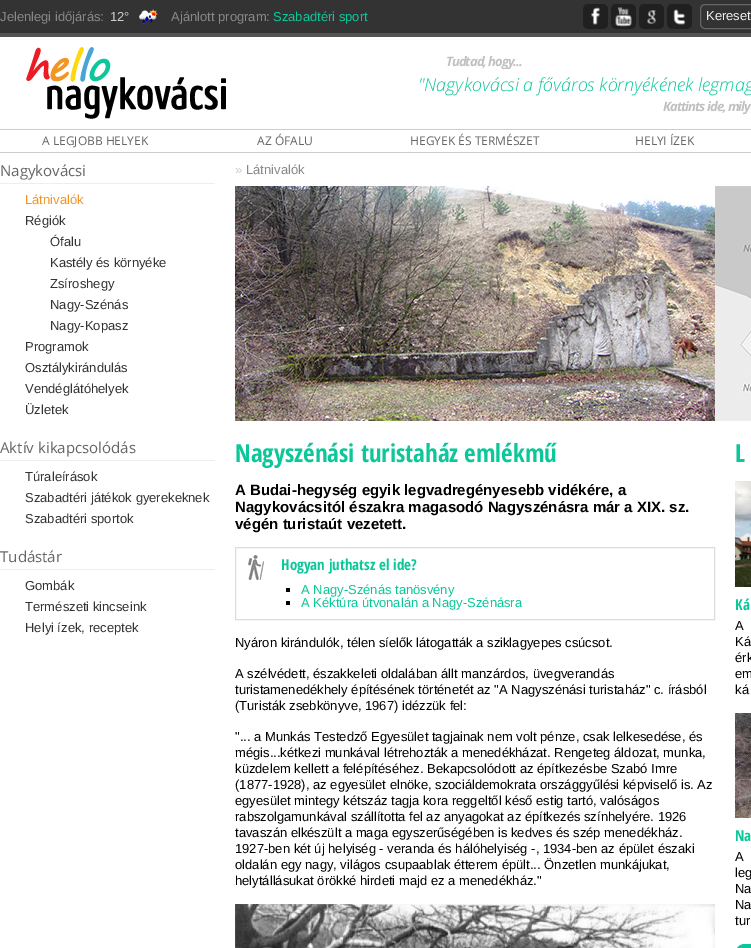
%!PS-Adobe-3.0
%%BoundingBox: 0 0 751 948
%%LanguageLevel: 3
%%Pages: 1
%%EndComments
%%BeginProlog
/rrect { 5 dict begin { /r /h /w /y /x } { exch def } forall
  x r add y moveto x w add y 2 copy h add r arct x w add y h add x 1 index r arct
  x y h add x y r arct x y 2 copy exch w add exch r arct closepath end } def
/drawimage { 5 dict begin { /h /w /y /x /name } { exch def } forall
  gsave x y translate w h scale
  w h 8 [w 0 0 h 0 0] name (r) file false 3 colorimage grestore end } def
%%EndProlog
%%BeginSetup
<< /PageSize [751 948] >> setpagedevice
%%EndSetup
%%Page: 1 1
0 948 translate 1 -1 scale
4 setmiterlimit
0.2 setgray
0 0 751 948 rectfill
0.325 setgray
0 33 751 4 rectfill
(images/1.raw) 139 9 19 15 drawimage
(images/2.raw) 583 4 25 25 drawimage
(images/3.raw) 611 4 25 25 drawimage
(images/4.raw) 639 4 25 25 drawimage
(images/5.raw) 667 4 25 25 drawimage
0.4 setgray
700.5 4.5 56 24 4.5 rrect stroke
1 setgray
0 37 751 911 rectfill
(images/6.raw) 26 47 200 72 drawimage
0.8 setgray
0 129 751 1 rectfill
0 152 751 1 rectfill
0.933 setgray
0 183 215 1 rectfill
0 460 215 1 rectfill
0 569 215 1 rectfill
(images/7.raw) 235 186 480 235 drawimage
(images/8.raw) 715 186 36 235 drawimage
(images/9.raw) 248 555 16 25 drawimage
0.867 setgray
235.5 547.5 479 72 rectstroke
0 setgray
286 588 4 4 rectfill
286 601 4 4 rectfill
(images/10.raw) 235 904 480 44 drawimage
(images/11.raw) 735 481 16 106 drawimage
(images/12.raw) 735 713 16 105 drawimage
0.043 0.78 0.6 setrgbcolor
735 944 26 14 10 rrect fill
/LiberationSans-Regular [13 0 0 -13 0 0] selectfont
0.533 setgray
0 21 moveto (Jelenlegi időjárás:) show
0.8 setgray
110 21 moveto (12°) show
0.533 setgray
171 21 moveto (Ajánlott program:) show
0.043 0.78 0.6 setrgbcolor
273 21 moveto (Szabadtéri sport) show
0.933 setgray
706 20 moveto (Kereset) show
/OpenSans-BoldItalic [13 0 0 -13 0 0] selectfont
0.753 setgray
446 66 moveto -1 0 (Tudtad, hogy...) ashow
/OpenSans-LightItalic [18 0 0 -18 0 0] selectfont
0.043 0.78 0.6 setrgbcolor
418 91 moveto ("Nagykovácsi a főváros környékének legmag) show
/OpenSans-BoldItalic [13 0 0 -13 0 0] selectfont
0.753 setgray
663 111 moveto -1 0 (Kattints ide, mily) ashow
/OpenSans-Regular [12 0 0 -12 0 0] selectfont
0.4 setgray
42 145 moveto (A LEGJOBB HELYEK) show
257 145 moveto (AZ ÓFALU) show
410 145 moveto (HEGYEK ÉS TERMÉSZET) show
635 145 moveto (HELYI ÍZEK) show
/OpenSans-Regular [15 0 0 -15 0 0] selectfont
0 176 moveto (Nagykovácsi) show
/LiberationSans-Regular [13 0 0 -13 0 0] selectfont
0.953 0.584 0.137 setrgbcolor
25 204 moveto (Látnivalók) show
0.2 setgray
25 225 moveto (Régiók) show
50 246 moveto (Ófalu) show
50 267 moveto (Kastély és környéke) show
50 288 moveto (Zsíroshegy) show
50 309 moveto (Nagy-Szénás) show
50 330 moveto (Nagy-Kopasz) show
25 351 moveto (Programok) show
25 372 moveto (Osztálykirándulás) show
25 393 moveto (Vendéglátóhelyek) show
25 414 moveto (Üzletek) show
/OpenSans-Regular [15 0 0 -15 0 0] selectfont
0.4 setgray
0 453 moveto (Aktív kikapcsolódás) show
/LiberationSans-Regular [13 0 0 -13 0 0] selectfont
0.2 setgray
25 481 moveto (Túraleírások) show
25 502 moveto (Szabadtéri játékok gyerekeknek) show
25 523 moveto (Szabadtéri sportok) show
/OpenSans-Regular [15 0 0 -15 0 0] selectfont
0.4 setgray
0 562 moveto (Tudástár) show
/LiberationSans-Regular [13 0 0 -13 0 0] selectfont
0.2 setgray
25 590 moveto (Gombák) show
25 611 moveto (Természeti kincseink) show
25 632 moveto (Helyi ízek, receptek) show
0.8 setgray
235 174 moveto (») show
0.533 setgray
246 174 moveto (Látnivalók) show
/OpenSansCondensed-Bold [25 0 0 -25 0 0] selectfont
0.043 0.78 0.6 setrgbcolor
235 462 moveto (Nagyszénási turistaház emlékmű) show
/LiberationSans-Bold [15 0 0 -15 0 0] selectfont
0 setgray
235 495 moveto (A Budai-hegység egyik legvadregényesebb vidékére, a) show
235 512 moveto (Nagykovácsitól északra magasodó Nagyszénásra már a XIX. sz.) show
235 529 moveto (végén turistaút vezetett.) show
/OpenSansCondensed-Bold [15 0 0 -15 0 0] selectfont
0.043 0.78 0.6 setrgbcolor
281 570 moveto (Hogyan juthatsz el ide?) show
/LiberationSans-Regular [13 0 0 -13 0 0] selectfont
301 594 moveto (A Nagy-Szénás tanösvény) show
301 607 moveto (A Kéktúra útvonalán a Nagy-Szénásra) show
0 setgray
235 647 moveto (Nyáron kirándulók, télen síelők látogatták a sziklagyepes csúcsot.) show
235 678 moveto (A szélvédett, északkeleti oldalában állt manzárdos, üvegverandás) show
235 694 moveto (turistamenedékhely építésének történetét az "A Nagyszénási turistaház" c. írásból) show
235 710 moveto (\(Turisták zsebkönyve, 1967\) idézzük fel:) show
235 741 moveto ("... a Munkás Testedző Egyesület tagjainak nem volt pénze, csak lelkesedése, és) show
235 757 moveto (mégis...kétkezi munkával létrehozták a menedékházat. Rengeteg áldozat, munka,) show
235 773 moveto (küzdelem kellett a felépítéséhez. Bekapcsolódott az építkezésbe Szabó Imre) show
235 789 moveto (\(1877-1928\), az egyesület elnöke, szociáldemokrata országgyűlési képviselő is. Az) show
235 805 moveto (egyesület mintegy kétszáz tagja kora reggeltől késő estig tartó, valóságos) show
235 821 moveto (rabszolgamunkával szállította fel az anyagokat az építkezés színhelyére. 1926) show
235 837 moveto (tavaszán elkészült a maga egyszerűségében is kedves és szép menedékház.) show
235 853 moveto (1927-ben két új helyiség - veranda és hálóhelyiség -, 1934-ben az épület északi) show
235 869 moveto (oldalán egy nagy, világos csupaablak étterem épült... Önzetlen munkájukat,) show
235 885 moveto (helytállásukat örökké hirdeti majd ez a menedékház.") show
/OpenSansCondensed-Bold [25 0 0 -25 0 0] selectfont
0.043 0.78 0.6 setrgbcolor
735 462 moveto (L) show
/OpenSansCondensed-Bold [15 0 0 -15 0 0] selectfont
735 610 moveto (Ká) show
/LiberationSans-Regular [13 0 0 -13 0 0] selectfont
0 setgray
735 630 moveto (A) show
735 646 moveto (Ká) show
735 662 moveto (érk) show
735 678 moveto (em) show
735 694 moveto (ká) show
/OpenSansCondensed-Bold [15 0 0 -15 0 0] selectfont
0.043 0.78 0.6 setrgbcolor
735 841 moveto (Na) show
/LiberationSans-Regular [13 0 0 -13 0 0] selectfont
0 setgray
735 861 moveto (A) show
735 877 moveto (leg) show
735 893 moveto (Na) show
735 909 moveto (Na) show
735 925 moveto (tur) show
showpage
%%EOF
